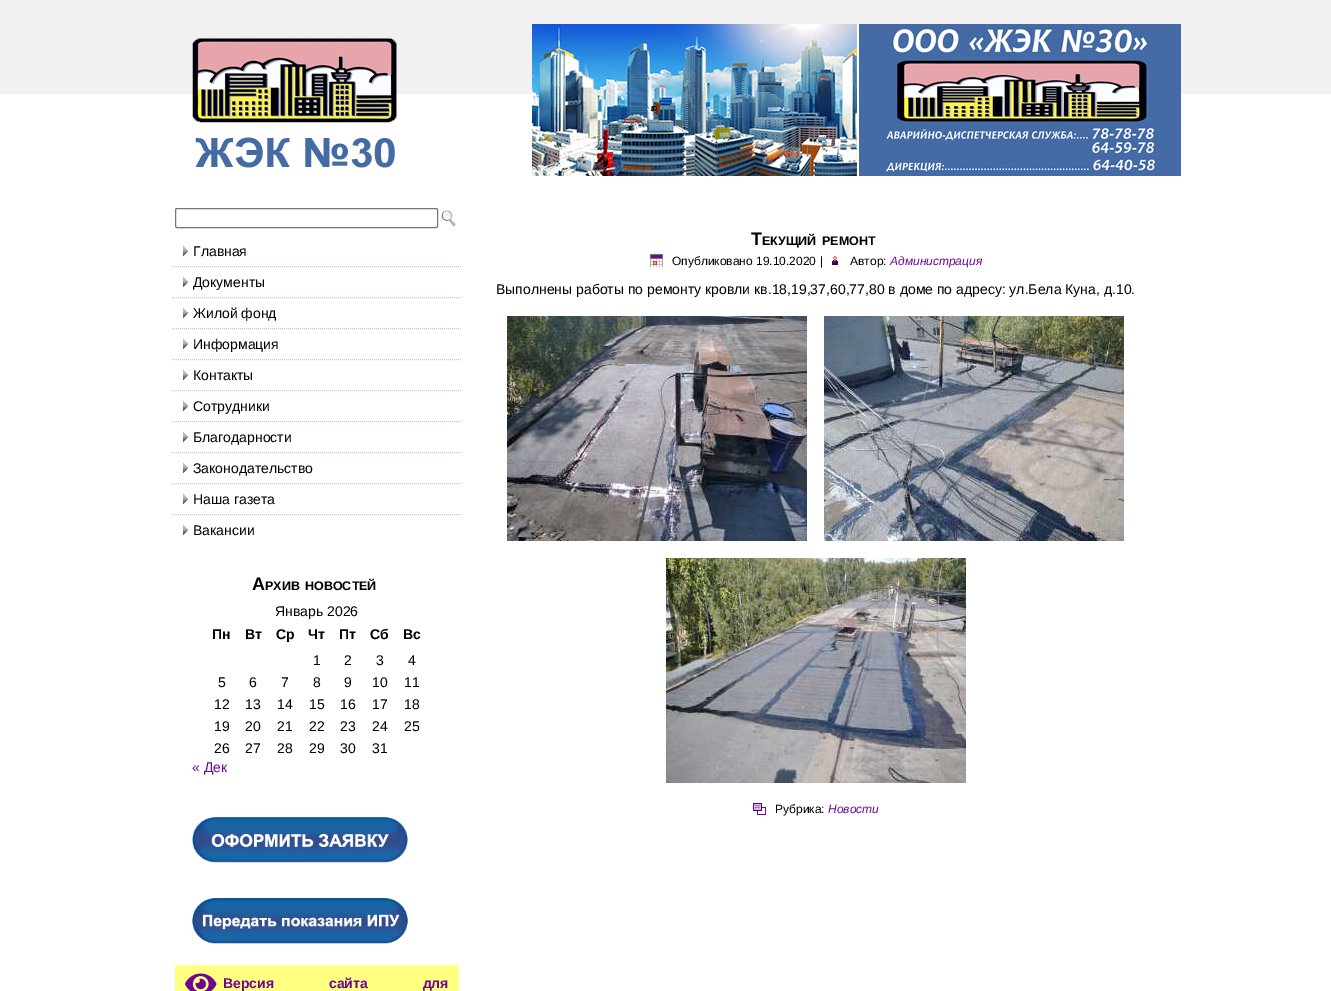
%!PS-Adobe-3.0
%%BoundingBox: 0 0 1331 991
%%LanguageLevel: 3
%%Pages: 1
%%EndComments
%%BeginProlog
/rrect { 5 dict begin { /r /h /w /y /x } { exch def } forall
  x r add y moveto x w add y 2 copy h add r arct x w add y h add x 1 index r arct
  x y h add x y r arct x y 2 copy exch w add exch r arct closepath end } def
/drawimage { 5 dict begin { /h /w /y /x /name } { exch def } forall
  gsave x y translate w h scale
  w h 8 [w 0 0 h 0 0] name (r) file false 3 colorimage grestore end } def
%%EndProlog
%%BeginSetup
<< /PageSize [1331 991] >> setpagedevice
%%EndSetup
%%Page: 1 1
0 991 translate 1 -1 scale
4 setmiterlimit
1 setgray
0 0 1331 991 rectfill
0.949 0.941 0.945 setrgbcolor
0 0 1331 94 rectfill
(images/1.raw) 192 38 205 130 drawimage
(images/2.raw) 532 24 649 152 drawimage
0.463 setgray
175.5 208.5 262 19 1.5 rrect stroke
(images/3.raw) 441 210 15 16 drawimage
(images/4.raw) 183 246 5 10 drawimage
0.816 0.745 0.792 setrgbcolor
[1 1] 0 setdash
newpath 172 266.5 moveto 462 266.5 lineto stroke
(images/4.raw) 183 277 5 10 drawimage
newpath 172 297.5 moveto 462 297.5 lineto stroke
(images/4.raw) 183 308 5 10 drawimage
newpath 172 328.5 moveto 462 328.5 lineto stroke
(images/4.raw) 183 339 5 10 drawimage
newpath 172 359.5 moveto 462 359.5 lineto stroke
(images/4.raw) 183 370 5 10 drawimage
newpath 172 390.5 moveto 462 390.5 lineto stroke
(images/4.raw) 183 401 5 10 drawimage
newpath 172 421.5 moveto 462 421.5 lineto stroke
(images/4.raw) 183 432 5 10 drawimage
newpath 172 452.5 moveto 462 452.5 lineto stroke
(images/4.raw) 183 463 5 10 drawimage
newpath 172 483.5 moveto 462 483.5 lineto stroke
(images/4.raw) 183 494 5 10 drawimage
newpath 172 514.5 moveto 462 514.5 lineto stroke
(images/4.raw) 183 525 5 10 drawimage
(images/5.raw) 192 817 216 46 drawimage
(images/6.raw) 192 898 216 46 drawimage
1 1 0.502 setrgbcolor
175 965 284 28 2 rrect fill
(images/7.raw) 185 973 32 18 drawimage
(images/8.raw) 650 254 13 13 drawimage
(images/9.raw) 832 256 6 9 drawimage
(images/10.raw) 507 316 300 225 drawimage
(images/11.raw) 824 316 300 225 drawimage
(images/12.raw) 666 558 300 225 drawimage
(images/13.raw) 753 803 13 12 drawimage
/LiberationSans-Regular [14 0 0 -14 0 0] selectfont
0 setgray
193 256 moveto (Главная) show
193 287 moveto (Документы) show
193 318 moveto (Жилой фонд) show
193 349 moveto (Информация) show
193 380 moveto (Контакты) show
193 411 moveto (Сотрудники) show
193 442 moveto (Благодарности) show
193 473 moveto (Законодательство) show
193 504 moveto (Наша газета) show
193 535 moveto (Вакансии) show
/LiberationSans-Bold [18 0 0 -18 0 0] selectfont
252 590 moveto (А) show
/LiberationSans-Bold [12.5 0 0 -12.5 0 0] selectfont
265 590 moveto (РХИВ) show
305 590 moveto (НОВОСТЕЙ) show
/LiberationSans-Regular [14 0 0 -14 0 0] selectfont
275 616 moveto (Январь 2026) show
/LiberationSans-Bold [14 0 0 -14 0 0] selectfont
212 639 moveto (Пн) show
245 639 moveto (Вт) show
276 639 moveto (Ср) show
308 639 moveto (Чт) show
339 639 moveto (Пт) show
370 639 moveto (Сб) show
403 639 moveto (Вс) show
/LiberationSans-Regular [14 0 0 -14 0 0] selectfont
313 665 moveto (1) show
344 665 moveto (2) show
376 665 moveto (3) show
408 665 moveto (4) show
218 687 moveto (5) show
249 687 moveto (6) show
281 687 moveto (7) show
313 687 moveto (8) show
344 687 moveto (9) show
372 687 moveto (10) show
404 687 moveto (11) show
214 709 moveto (12) show
245 709 moveto (13) show
277 709 moveto (14) show
309 709 moveto (15) show
340 709 moveto (16) show
372 709 moveto (17) show
404 709 moveto (18) show
214 731 moveto (19) show
245 731 moveto (20) show
277 731 moveto (21) show
309 731 moveto (22) show
340 731 moveto (23) show
372 731 moveto (24) show
404 731 moveto (25) show
214 753 moveto (26) show
245 753 moveto (27) show
277 753 moveto (28) show
309 753 moveto (29) show
340 753 moveto (30) show
372 753 moveto (31) show
0.439 0.02 0.58 setrgbcolor
192 772 moveto (« Дек) show
/LiberationSans-Bold [14 0 0 -14 0 0] selectfont
223 988 moveto 51 0 32 (Версия сайта для) widthshow
/LiberationSans-Bold [18 0 0 -18 0 0] selectfont
0 setgray
751 245 moveto (Т) show
/LiberationSans-Bold [12.5 0 0 -12.5 0 0] selectfont
762 245 moveto (ЕКУЩИЙ) show
822 245 moveto (РЕМОНТ) show
/LiberationSans-Regular [12 0 0 -12 0 0] selectfont
672 265 moveto (Опубликовано 19.10.2020) show
820 265 moveto (|) show
850 265 moveto (Автор:) show
/LiberationSans-Italic [12 0 0 -12 0 0] selectfont
0.439 0.02 0.58 setrgbcolor
890 265 moveto (Администрация) show
/LiberationSans-Regular [14 0 0 -14 0 0] selectfont
0 setgray
496 294 moveto (Выполнены работы по ремонту кровли кв.18,19,37,60,77,80 в доме по адресу: ул.Бела Куна, д.10.) show
/LiberationSans-Regular [12 0 0 -12 0 0] selectfont
775 813 moveto (Рубрика:) show
/LiberationSans-Italic [12 0 0 -12 0 0] selectfont
0.439 0.02 0.58 setrgbcolor
828 813 moveto (Новости) show
showpage
%%EOF
